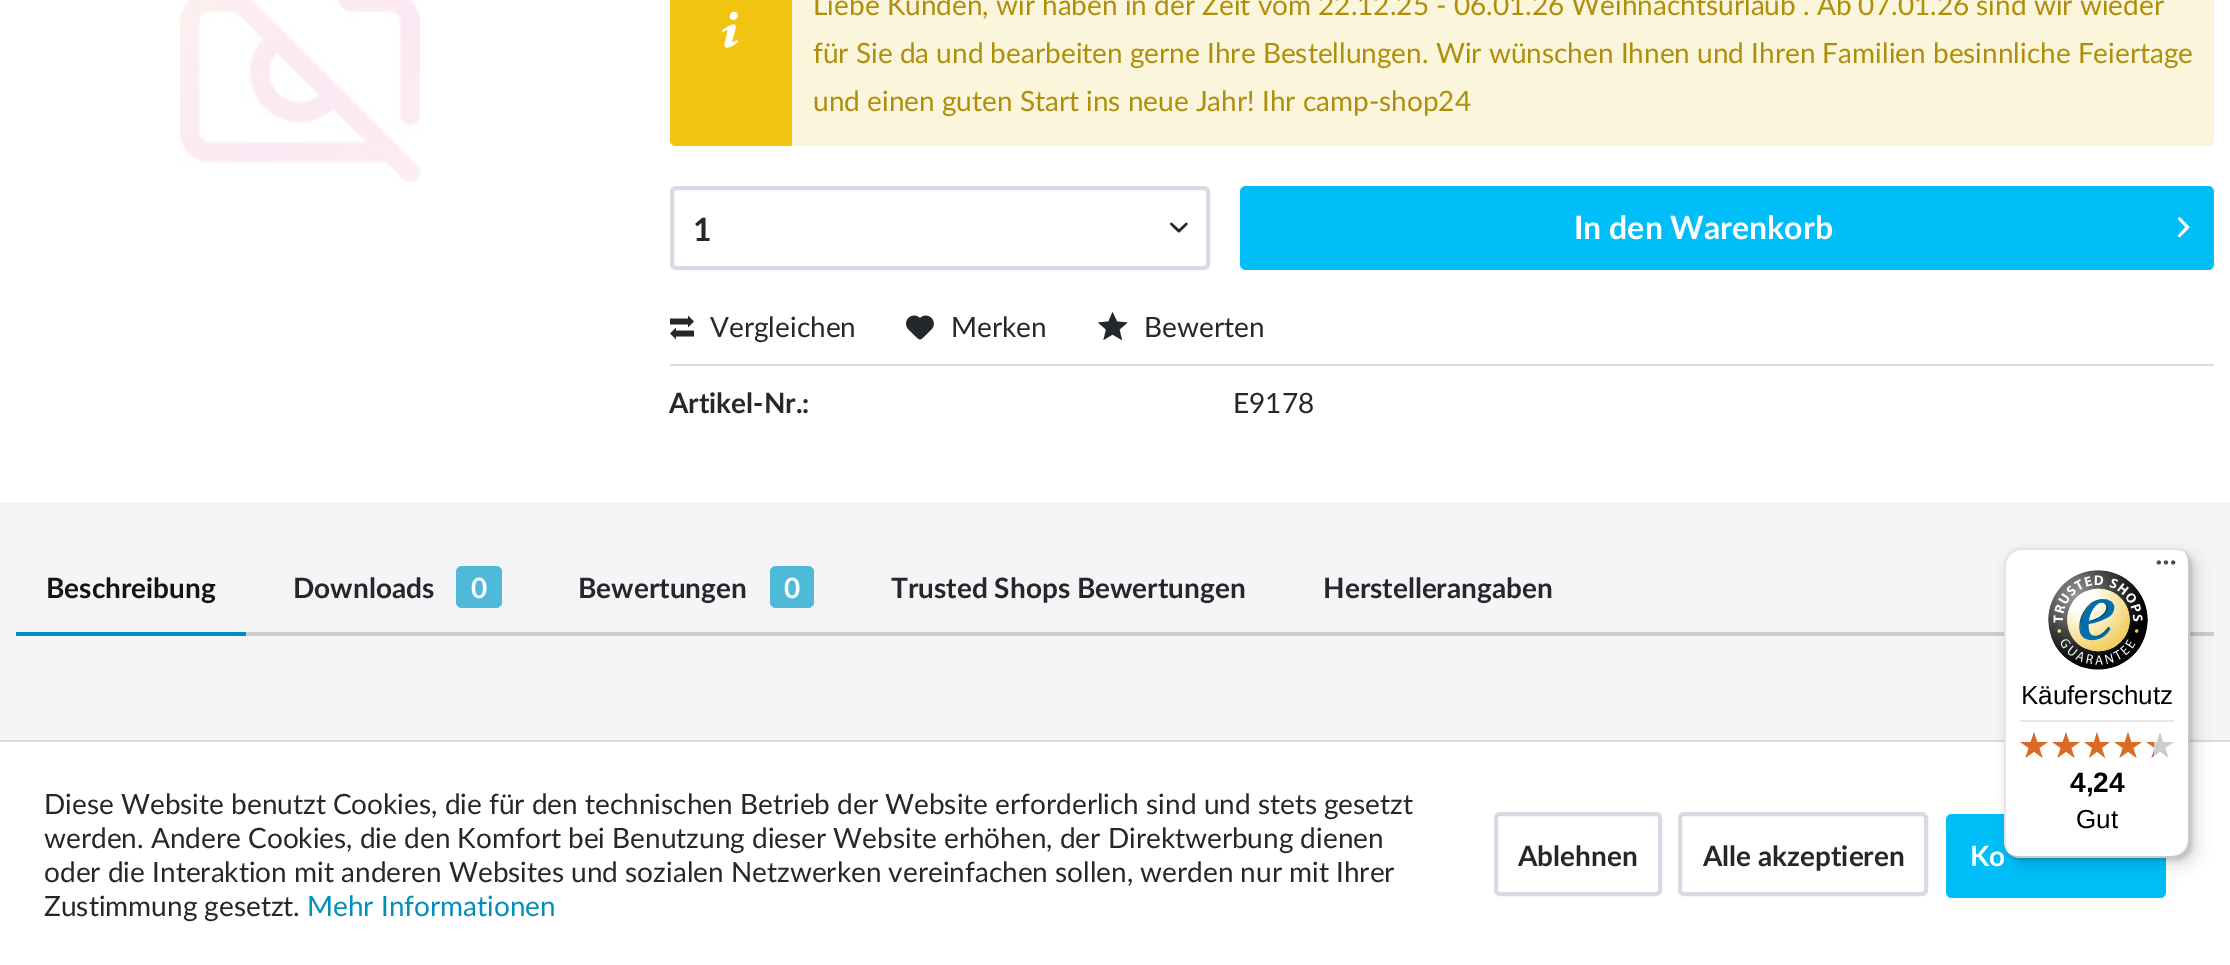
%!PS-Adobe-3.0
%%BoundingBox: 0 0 2230 965
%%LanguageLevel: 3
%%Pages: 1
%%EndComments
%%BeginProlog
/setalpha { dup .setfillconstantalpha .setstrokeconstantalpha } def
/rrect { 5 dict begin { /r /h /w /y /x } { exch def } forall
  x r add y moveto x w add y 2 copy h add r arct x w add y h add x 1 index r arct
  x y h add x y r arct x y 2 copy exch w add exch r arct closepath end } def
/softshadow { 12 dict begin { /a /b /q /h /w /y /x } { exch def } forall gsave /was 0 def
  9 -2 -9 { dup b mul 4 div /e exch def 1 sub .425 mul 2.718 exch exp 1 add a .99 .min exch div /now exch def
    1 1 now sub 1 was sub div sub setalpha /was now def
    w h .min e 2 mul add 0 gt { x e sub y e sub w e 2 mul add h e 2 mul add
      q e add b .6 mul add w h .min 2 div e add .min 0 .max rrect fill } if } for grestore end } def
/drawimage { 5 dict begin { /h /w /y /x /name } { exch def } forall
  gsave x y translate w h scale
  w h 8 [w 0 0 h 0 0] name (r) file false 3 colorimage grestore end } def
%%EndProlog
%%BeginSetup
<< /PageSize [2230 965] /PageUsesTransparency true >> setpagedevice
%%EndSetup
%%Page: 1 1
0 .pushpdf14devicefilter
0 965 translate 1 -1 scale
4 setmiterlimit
1 setgray
0 0 2230 965 rectfill
(images/1.raw) 179 0 242 183 drawimage
0.984 0.961 0.859 setrgbcolor
670 -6 1544 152 6 rrect fill
0.945 0.769 0.059 setrgbcolor
newpath 676 -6 moveto 792 -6 lineto 792 146 lineto 676 146 lineto 672.5 146 670 143.5 670 140 curveto 670 0 lineto 670 -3.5 672.5 -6 676 -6 curveto closepath fill
(images/2.raw) 721 11 18 37 drawimage
0.855 0.855 0.898 setrgbcolor
4 setlinewidth
672 188 536 80 4 rrect stroke
(images/3.raw) 1170 222 18 11 drawimage
0 0.745 0.973 setrgbcolor
1240 186 974 84 6 rrect fill
(images/4.raw) 2178 217 12 21 drawimage
0.855 0.855 0.898 setrgbcolor
670 364 1544 2 rectfill
(images/5.raw) 670 315 24 25 drawimage
(images/6.raw) 906 315 28 25 drawimage
0.141 0.157 0.169 setrgbcolor
newpath 1112.5 312 moveto 1108.5 321.5 lineto 1098 322.5 lineto 1106 329.5 lineto 1103.5 340 lineto 1112.5 334.5 lineto 1122 340 lineto 1119.5 329.5 lineto 1127.5 322.5 lineto 1117 321.5 lineto closepath fill
0.961 0.961 0.973 setrgbcolor
0 502 2230 238 rectfill
0.8 setgray
246 632 1968 4 rectfill
0 0.561 0.733 setrgbcolor
16 632 230 4 rectfill
0.31 0.725 0.855 setrgbcolor
456 566 46 42 6 rrect fill
770 566 44 42 6 rrect fill
0.855 0.855 0.898 setrgbcolor
0 740 2230 2 rectfill
0 0.745 0.973 setrgbcolor
1946 814 220 84 6 rrect fill
0 setgray
2010 554 186 310 16 8 0.15 softshadow
2006 550 186 310 16 2 0.15 softshadow
1 setgray
2004 548 186 310 16 rrect fill
0.1 setalpha
0 setgray
newpath 2022 550 moveto 2176 550 lineto 2180 550 2183 551 2186 553 curveto 2183 550 2179 548 2174 548 curveto 2020 548 lineto 2011 548 2004 555 2004 564 curveto 2004 842 lineto 2004 847 2006 851 2009 854 curveto 2007 851 2006 848 2006 844 curveto 2006 566 lineto 2006 557 2013 550 2022 550 curveto closepath fill
0.2 setalpha
newpath 2008 853 moveto 2011 856 2015 858 2020 858 curveto 2174 858 lineto 2183 858 2190 851 2190 842 curveto 2190 564 lineto 2190 559 2188 555 2185 552 curveto 2187 555 2188 558 2188 562 curveto 2188 840 lineto 2188 849 2181 856 2172 856 curveto 2018 856 lineto 2014 856 2011 855 2008 853 curveto closepath fill
0.196 setgray
newpath 2009 853 moveto 2012 856 2016 858 2020 858 curveto 2174 858 lineto 2183 858 2190 851 2190 842 curveto 2190 564 lineto 2190 560 2188 556 2185 553 curveto 2188 556 2189 559 2189 563 curveto 2189 841 lineto 2189 850 2182 857 2173 857 curveto 2019 857 lineto 2015 857 2012 856 2009 853 curveto closepath fill
0.3 setalpha
1 setgray
newpath 2009 853 moveto 2012 856 2016 858 2020 858 curveto 2174 858 lineto 2183 858 2190 851 2190 842 curveto 2190 564 lineto 2190 560 2188 556 2185 553 curveto 2188 556 2189 559 2189 563 curveto 2189 841 lineto 2189 850 2182 857 2173 857 curveto 2019 857 lineto 2015 857 2012 856 2009 853 curveto closepath fill
1 setalpha
(images/7.raw) 2156 560 20 5 drawimage
(images/8.raw) 2048 570 100 100 drawimage
0.898 setgray
2020 720 154 2 rectfill
(images/9.raw) 2020 732 28 26 drawimage
(images/9.raw) 2052 732 28 26 drawimage
(images/10.raw) 2084 732 26 26 drawimage
(images/9.raw) 2114 732 28 26 drawimage
(images/9.raw) 2146 732 28 26 drawimage
(images/11.raw) 2020 732 28 26 drawimage
(images/11.raw) 2052 732 28 26 drawimage
(images/12.raw) 2084 732 26 26 drawimage
(images/11.raw) 2114 732 28 26 drawimage
(images/13.raw) 2146 742 8 16 drawimage
0.855 0.855 0.898 setrgbcolor
1496 814 164 80 4 rrect stroke
1680 814 246 80 4 rrect stroke
/Lato-Regular [28 0 0 -28 0 0] selectfont
0.682 0.557 0.039 setrgbcolor
813 15 moveto (Liebe Kunden, wir haben in der Zeit vom 22.12.25 - 06.01.26 Weihnachtsurlaub . Ab 07.01.26 sind wir wieder) show
813 63 moveto (für Sie da und bearbeiten gerne Ihre Bestellungen. Wir wünschen Ihnen und Ihren Familien besinnliche Feiertage) show
813 111 moveto (und einen guten Start ins neue Jahr! Ihr camp-shop24) show
/Lato-Bold [32 0 0 -32 0 0] selectfont
0.141 0.157 0.169 setrgbcolor
693 241 moveto (1) show
1 setgray
1574 239 moveto (In den Warenkorb) show
/Lato-Regular [28 0 0 -28 0 0] selectfont
0.141 0.157 0.169 setrgbcolor
710 337 moveto (Vergleichen) show
951 337 moveto (Merken) show
1144 337 moveto (Bewerten) show
/Lato-Bold [28 0 0 -28 0 0] selectfont
669 413 moveto (Artikel-Nr.:) show
/Lato-Regular [28 0 0 -28 0 0] selectfont
1233 413 moveto (E9178) show
/Lato-Bold [28 0 0 -28 0 0] selectfont
0.071 0.075 0.078 setrgbcolor
46 598 moveto (Beschreibung) show
0.141 0.157 0.169 setrgbcolor
293 598 moveto (Downloads) show
1 setgray
471 598 moveto (0) show
0.141 0.157 0.169 setrgbcolor
578 598 moveto (Bewertungen) show
1 setgray
784 598 moveto (0) show
0.141 0.157 0.169 setrgbcolor
891 598 moveto (Trusted Shops Bewertungen) show
1323 598 moveto (Herstellerangaben) show
/LiberationSans-Regular [26 0 0 -26 0 0] selectfont
0 setgray
2021 704 moveto (Käuferschutz) show
/LiberationSans-Bold [28 0 0 -28 0 0] selectfont
2070 792 moveto (4,24) show
/LiberationSans-Regular [26 0 0 -26 0 0] selectfont
2076 828 moveto (Gut) show
/Lato-Regular [28 0 0 -28 0 0] selectfont
0.141 0.157 0.169 setrgbcolor
44 814 moveto (Diese Website benutzt Cookies, die für den technischen Betrieb der Website erforderlich sind und stets gesetzt) show
44 848 moveto (werden. Andere Cookies, die den Komfort bei Benutzung dieser Website erhöhen, der Direktwerbung dienen) show
44 882 moveto (oder die Interaktion mit anderen Websites und sozialen Netzwerken vereinfachen sollen, werden nur mit Ihrer) show
44 916 moveto (Zustimmung gesetzt.) show
0 0.561 0.733 setrgbcolor
307 916 moveto (Mehr Informationen) show
/Lato-Bold [28 0 0 -28 0 0] selectfont
0.141 0.157 0.169 setrgbcolor
1518 866 moveto (Ablehnen) show
1703 866 moveto (Alle akzeptieren) show
1 setgray
1970 866 moveto (Ko) show
.poppdf14devicefilter showpage
%%EOF
